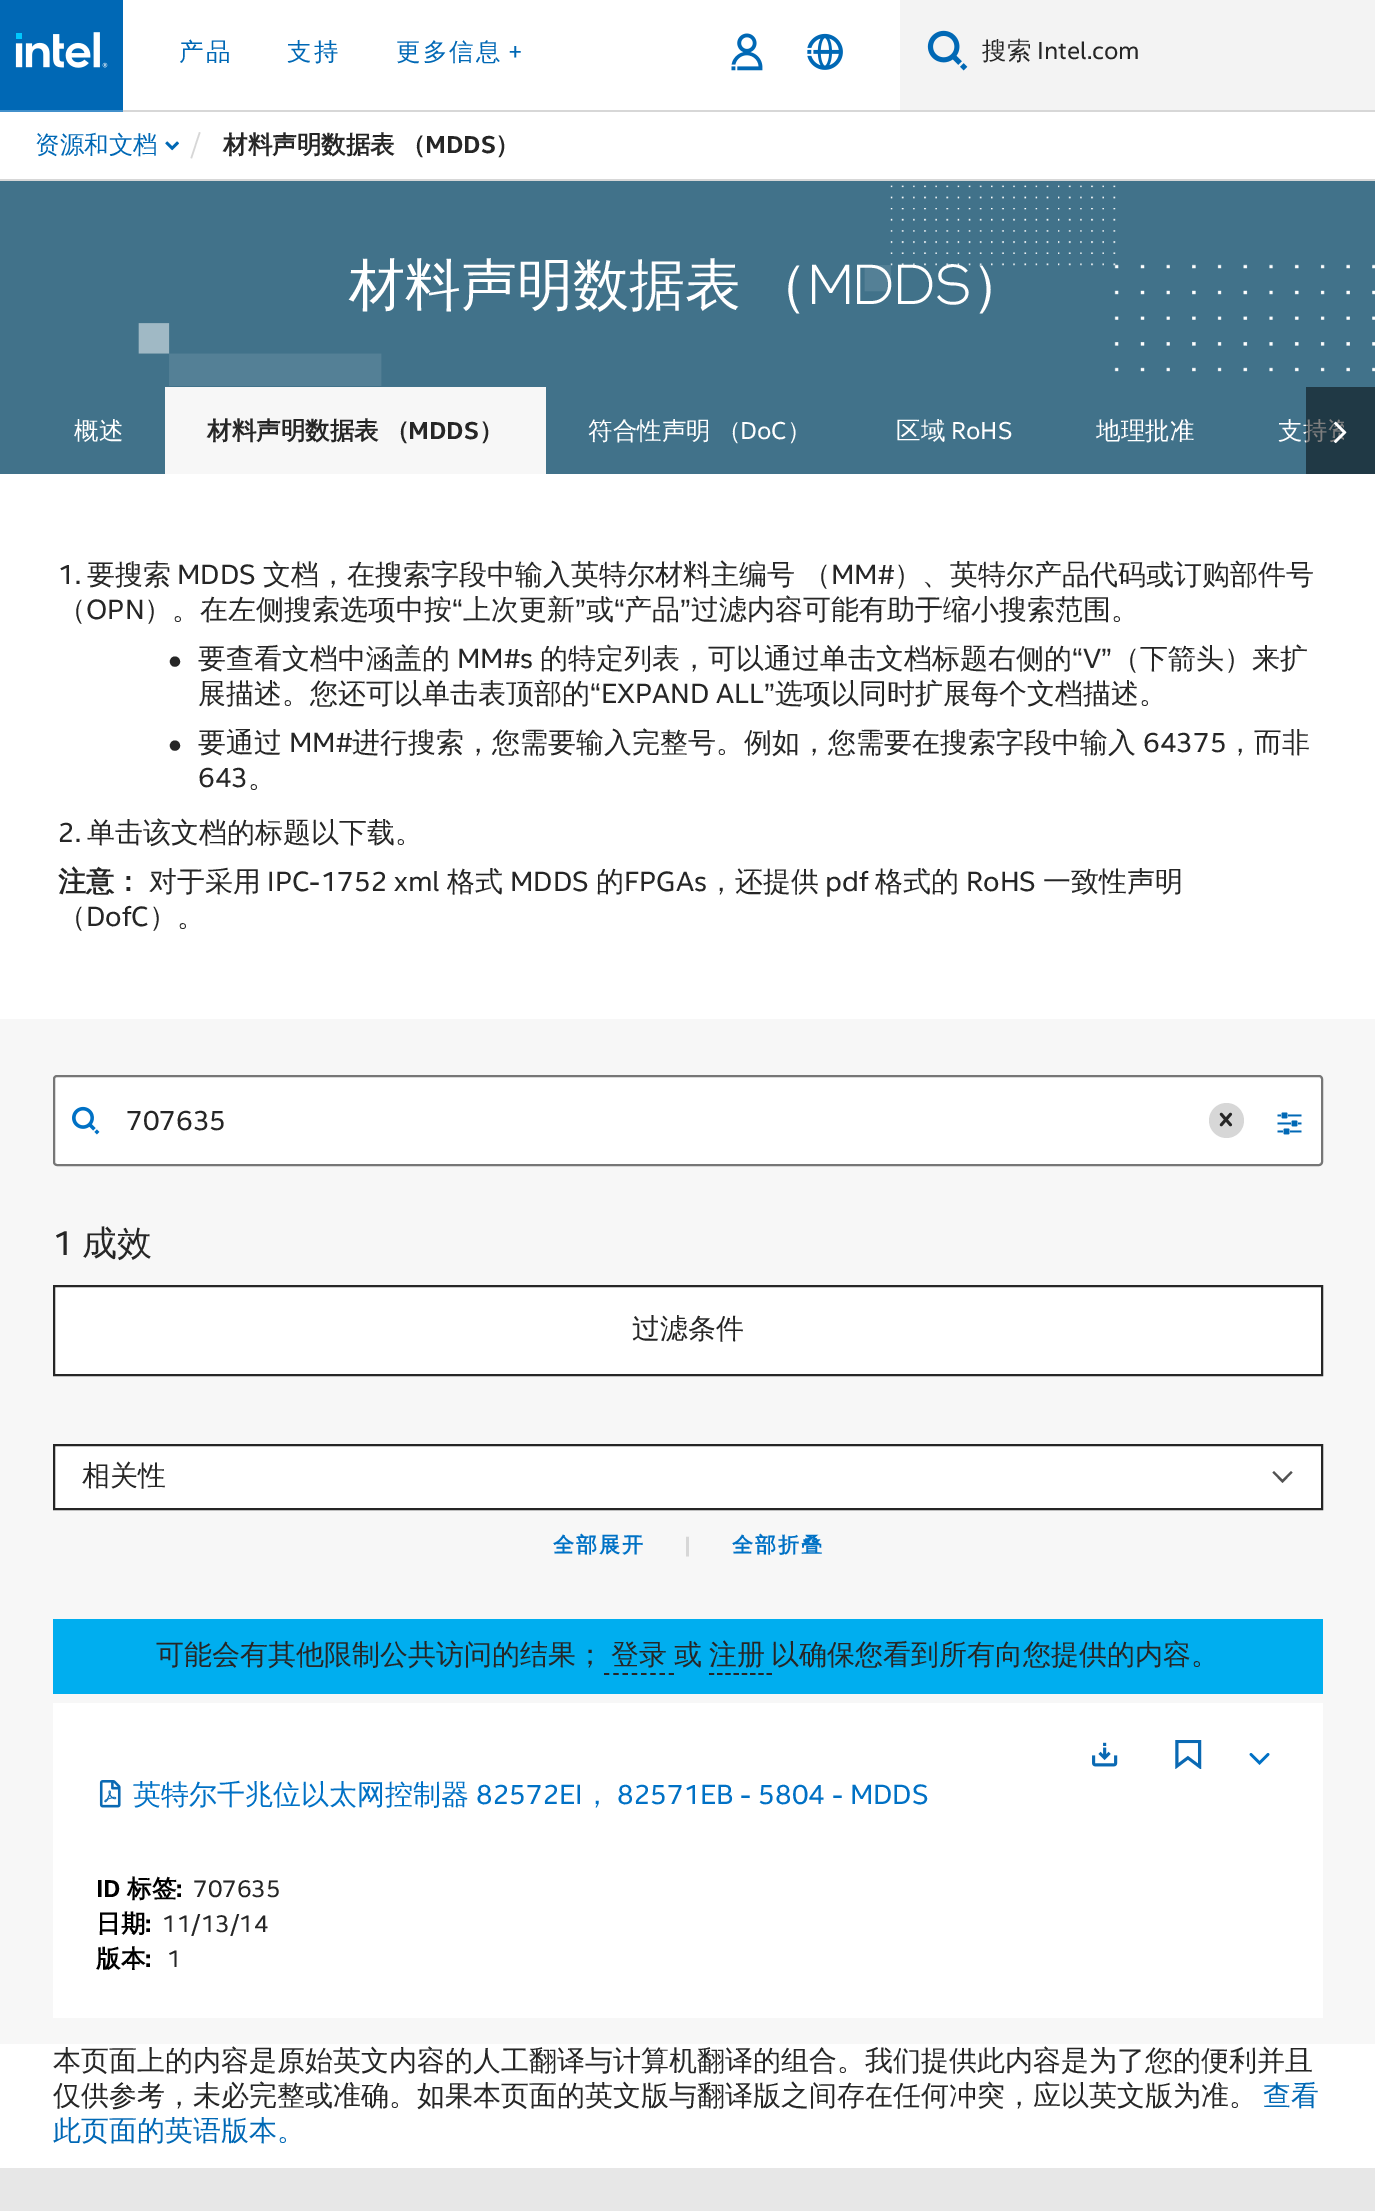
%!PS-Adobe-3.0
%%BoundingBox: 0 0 1375 2211
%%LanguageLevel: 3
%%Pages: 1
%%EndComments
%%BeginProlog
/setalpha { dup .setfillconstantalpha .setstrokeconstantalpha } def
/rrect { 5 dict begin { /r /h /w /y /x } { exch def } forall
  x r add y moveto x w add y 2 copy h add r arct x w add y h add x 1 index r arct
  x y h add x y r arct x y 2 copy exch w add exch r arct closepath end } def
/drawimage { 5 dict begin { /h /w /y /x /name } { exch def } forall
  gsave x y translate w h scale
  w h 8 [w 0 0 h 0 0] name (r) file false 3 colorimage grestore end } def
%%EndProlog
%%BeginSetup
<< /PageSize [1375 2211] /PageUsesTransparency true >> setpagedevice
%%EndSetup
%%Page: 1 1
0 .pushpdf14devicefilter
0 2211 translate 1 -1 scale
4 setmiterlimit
1 setgray
0 0 1375 2211 rectfill
0.843 setgray
123 110 1252 2 rectfill
0 0.408 0.71 setrgbcolor
0 0 123 110 rectfill
(images/1.raw) 15 32 93 36 drawimage
0.259 0.565 0.796 setrgbcolor
0 110 123 2 rectfill
(images/2.raw) 731 33 32 38 drawimage
(images/3.raw) 807 33 36 37 drawimage
0.953 setgray
900 0 475 110 rectfill
(images/4.raw) 927 30 41 41 drawimage
0.843 setgray
0 179 1375 2 rectfill
(images/5.raw) 165 141 14 10 drawimage
newpath 199 132 moveto 200.5 132.5 lineto 192 158.5 lineto 190.5 158 lineto closepath fill
0.255 0.447 0.541 setrgbcolor
0 181 1375 293 rectfill
(images/6.raw) 138 185 1237 201 drawimage
0.969 setgray
165 387 381 87 rectfill
0 1019 1375 1025 rectfill
1 setgray
54 1076 1268 89 3 rrect gsave fill grestore
0.463 setgray
2 setlinewidth
stroke
(images/8.raw) 72 1106 28 29 drawimage
0.843 setgray
newpath 1226.5 1120.5 17.5 0 360 arc closepath fill
(images/9.raw) 1219 1112 14 15 drawimage
(images/10.raw) 1277 1112 25 23 drawimage
1 setgray
newpath 54 1286 moveto 1322 1286 lineto 1322 1375 lineto 54 1375 lineto closepath gsave fill grestore
0.149 setgray
stroke
1 setgray
55 1446 1266 62 rectfill
0.322 setgray
newpath 1272.5 1472.5 moveto 1274 1471 lineto 1282.5 1479.5 lineto 1291 1471 lineto 1292.5 1472.5 lineto 1282.5 1483 lineto closepath eofill
0.145 setgray
54 1445 1268 64 rectstroke
0 0.682 0.937 setrgbcolor
53 1619 1270 75 rectfill
0.149 setgray
1.8 setlinewidth
[5.25 4.01] 0 setdash
newpath 604 1674 moveto 674 1674 lineto stroke
[5.25 2.99] 0 setdash
newpath 709 1674 moveto 772 1674 lineto stroke
1 setgray
53 1703 1270 315 rectfill
(images/11.raw) 1092 1742 26 25 drawimage
(images/12.raw) 1175 1740 27 29 drawimage
(images/13.raw) 1249 1753 21 12 drawimage
(images/14.raw) 99 1780 22 28 drawimage
0.906 setgray
0 2168 1375 43 rectfill
/WenQuanYiZenHei-Medium [24.5 0 0 -24.5 0 0] selectfont
0 0.408 0.71 setrgbcolor
179 60 moveto 2 0 (产品) ashow
287 60 moveto 2 0 (支持) ashow
396 60 moveto 2 0 (更多信息) ashow
/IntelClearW-Regular [24.5 0 0 -24.5 0 0] selectfont
508 60 moveto 2 0 (+) ashow
/WenQuanYiZenHei-Medium [24.5 0 0 -24.5 0 0] selectfont
0.149 setgray
982 59 moveto (搜索) show
/IntelClearW-Regular [24.5 0 0 -24.5 0 0] selectfont
1037 59 moveto (Intel.com) show
/WenQuanYiZenHei-Medium [24.5 0 0 -24.5 0 0] selectfont
0 0.408 0.71 setrgbcolor
35 153 moveto (资源和文档) show
/WenQuanYiZenHei-Bold [24.5 0 0 -24.5 0 0] selectfont
0.149 setgray
223 153 moveto -1 0 32 (材料声明数据表 （) widthshow
/IntelClearW-Bold [24.5 0 0 -24.5 0 0] selectfont
425 153 moveto (MDDS) show
/WenQuanYiZenHei-Bold [24.5 0 0 -24.5 0 0] selectfont
495 153 moveto (）) show
/WenQuanYiZenHei-Medium [56 0 0 -56 0 0] selectfont
1 setgray
349 304 moveto -6 0 32 (材料声明数据表 （) widthshow
/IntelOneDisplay-Light [56 0 0 -56 0 0] selectfont
808 304 moveto (MDDS) show
/WenQuanYiZenHei-Medium [56 0 0 -56 0 0] selectfont
971 304 moveto (）) show
/WenQuanYiZenHei-Medium [24.5 0 0 -24.5 0 0] selectfont
74 439 moveto (概述) show
/WenQuanYiZenHei-Bold [24.5 0 0 -24.5 0 0] selectfont
0.149 setgray
207 439 moveto -1 0 32 (材料声明数据表 （) widthshow
/IntelClearW-Bold [24.5 0 0 -24.5 0 0] selectfont
408 439 moveto (MDDS) show
/WenQuanYiZenHei-Bold [24.5 0 0 -24.5 0 0] selectfont
479 439 moveto (）) show
/WenQuanYiZenHei-Medium [24.5 0 0 -24.5 0 0] selectfont
1 setgray
588 439 moveto -1 0 32 (符合性声明 （) widthshow
/IntelClearW-Regular [24.5 0 0 -24.5 0 0] selectfont
740 439 moveto (DoC) show
/WenQuanYiZenHei-Medium [24.5 0 0 -24.5 0 0] selectfont
787 439 moveto (）) show
896 439 moveto (区域) show
/IntelClearW-Regular [24.5 0 0 -24.5 0 0] selectfont
951 439 moveto (RoHS) show
/WenQuanYiZenHei-Medium [24.5 0 0 -24.5 0 0] selectfont
1096 439 moveto (地理批准) show
gsave
32 387 1312 87 rectclip
1278 439 moveto (支持资) show
grestore
0.5 setalpha
0 setgray
1306 387 69 87 rectfill
1 setalpha
(images/7.raw) 1333 421 14 23 drawimage
/IntelClearW-Regular [28 0 0 -28 0 0] selectfont
0.149 setgray
58 584 moveto (1.) show
/WenQuanYiZenHei-Medium [28 0 0 -28 0 0] selectfont
87 584 moveto (要搜索) show
/IntelClearW-Regular [28 0 0 -28 0 0] selectfont
177 584 moveto (MDDS) show
/WenQuanYiZenHei-Medium [28 0 0 -28 0 0] selectfont
263 584 moveto (文档，在搜索字段中输入英特尔材料主编号 （) show
/IntelClearW-Regular [28 0 0 -28 0 0] selectfont
831 584 moveto (MM#) show
/WenQuanYiZenHei-Medium [28 0 0 -28 0 0] selectfont
894 584 moveto (）、英特尔产品代码或订购部件号) show
58 619 moveto (（) show
/IntelClearW-Regular [28 0 0 -28 0 0] selectfont
86 619 moveto (OPN) show
/WenQuanYiZenHei-Medium [28 0 0 -28 0 0] selectfont
144 619 moveto (）。在左侧搜索选项中按) show
/IntelClearW-Regular [28 0 0 -28 0 0] selectfont
452 619 moveto (“) show
/WenQuanYiZenHei-Medium [28 0 0 -28 0 0] selectfont
463 619 moveto (上次更新) show
/IntelClearW-Regular [28 0 0 -28 0 0] selectfont
575 619 moveto (”) show
/WenQuanYiZenHei-Medium [28 0 0 -28 0 0] selectfont
586 619 moveto (或) show
/IntelClearW-Regular [28 0 0 -28 0 0] selectfont
614 619 moveto (“) show
/WenQuanYiZenHei-Medium [28 0 0 -28 0 0] selectfont
624 619 moveto (产品) show
/IntelClearW-Regular [28 0 0 -28 0 0] selectfont
680 619 moveto (”) show
/WenQuanYiZenHei-Medium [28 0 0 -28 0 0] selectfont
691 619 moveto (过滤内容可能有助于缩小搜索范围。) show
/IntelClearW-Regular [40 0 0 -40 0 0] selectfont
168 672 moveto (•) show
/WenQuanYiZenHei-Medium [28 0 0 -28 0 0] selectfont
198 668 moveto (要查看文档中涵盖的) show
/IntelClearW-Regular [28 0 0 -28 0 0] selectfont
457 668 moveto (MM#s) show
/WenQuanYiZenHei-Medium [28 0 0 -28 0 0] selectfont
540 668 moveto (的特定列表，可以通过单击文档标题右侧的) show
/IntelClearW-Regular [28 0 0 -28 0 0] selectfont
1072 668 moveto (“V”) show
/WenQuanYiZenHei-Medium [28 0 0 -28 0 0] selectfont
1112 668 moveto (（下箭头）来扩) show
198 703 moveto (展描述。您还可以单击表顶部的) show
/IntelClearW-Regular [28 0 0 -28 0 0] selectfont
590 703 moveto (“EXPAND ALL”) show
/WenQuanYiZenHei-Medium [28 0 0 -28 0 0] selectfont
775 703 moveto (选项以同时扩展每个文档描述。) show
/IntelClearW-Regular [40 0 0 -40 0 0] selectfont
168 756 moveto (•) show
/WenQuanYiZenHei-Medium [28 0 0 -28 0 0] selectfont
198 752 moveto (要通过) show
/IntelClearW-Regular [28 0 0 -28 0 0] selectfont
289 752 moveto (MM#) show
/WenQuanYiZenHei-Medium [28 0 0 -28 0 0] selectfont
352 752 moveto (进行搜索，您需要输入完整号。例如，您需要在搜索字段中输入) show
/IntelClearW-Regular [28 0 0 -28 0 0] selectfont
1143 752 moveto (64375) show
/WenQuanYiZenHei-Medium [28 0 0 -28 0 0] selectfont
1226 752 moveto (，而非) show
/IntelClearW-Regular [28 0 0 -28 0 0] selectfont
198 787 moveto (643) show
/WenQuanYiZenHei-Medium [28 0 0 -28 0 0] selectfont
248 787 moveto (。) show
/IntelClearW-Regular [28 0 0 -28 0 0] selectfont
58 842 moveto (2.) show
/WenQuanYiZenHei-Medium [28 0 0 -28 0 0] selectfont
87 842 moveto (单击该文档的标题以下载。) show
/WenQuanYiZenHei-Bold [28 0 0 -28 0 0] selectfont
58 891 moveto (注意：) show
/WenQuanYiZenHei-Medium [28 0 0 -28 0 0] selectfont
149 891 moveto (对于采用) show
/IntelClearW-Regular [28 0 0 -28 0 0] selectfont
267 891 moveto (IPC-1752 xml) show
/WenQuanYiZenHei-Medium [28 0 0 -28 0 0] selectfont
447 891 moveto (格式) show
/IntelClearW-Regular [28 0 0 -28 0 0] selectfont
510 891 moveto (MDDS) show
/WenQuanYiZenHei-Medium [28 0 0 -28 0 0] selectfont
596 891 moveto (的) show
/IntelClearW-Regular [28 0 0 -28 0 0] selectfont
624 891 moveto (FPGAs) show
/WenQuanYiZenHei-Medium [28 0 0 -28 0 0] selectfont
707 891 moveto (，还提供) show
/IntelClearW-Regular [28 0 0 -28 0 0] selectfont
825 891 moveto (pdf) show
/WenQuanYiZenHei-Medium [28 0 0 -28 0 0] selectfont
875 891 moveto (格式的) show
/IntelClearW-Regular [28 0 0 -28 0 0] selectfont
966 891 moveto (RoHS) show
/WenQuanYiZenHei-Medium [28 0 0 -28 0 0] selectfont
1043 891 moveto (一致性声明) show
58 926 moveto (（) show
/IntelClearW-Regular [28 0 0 -28 0 0] selectfont
86 926 moveto (DofC) show
/WenQuanYiZenHei-Medium [28 0 0 -28 0 0] selectfont
149 926 moveto (）。) show
/IntelClearW-Regular [28 0 0 -28 0 0] selectfont
126 1130 moveto (707635) show
/IntelClearW-Regular [35 0 0 -35 0 0] selectfont
53 1255 moveto (1) show
/WenQuanYiZenHei-Medium [35 0 0 -35 0 0] selectfont
82 1255 moveto (成效) show
/WenQuanYiZenHei-Medium [28 0 0 -28 0 0] selectfont
632 1338 moveto (过滤条件) show
82 1485 moveto (相关性) show
/WenQuanYiZenHei-Bold [21 0 0 -21 0 0] selectfont
0 0.443 0.773 setrgbcolor
553 1552 moveto 2 0 (全部展开) ashow
/IntelClearW-Bold [21 0 0 -21 0 0] selectfont
0.843 setgray
684 1552 moveto (|) show
/WenQuanYiZenHei-Bold [21 0 0 -21 0 0] selectfont
0 0.443 0.773 setrgbcolor
732 1552 moveto 2 0 (全部折叠) ashow
/WenQuanYiZenHei-Medium [28 0 0 -28 0 0] selectfont
0.149 setgray
156 1664 moveto (可能会有其他限制公共访问的结果；) show
611 1664 moveto (登录) show
674 1664 moveto (或) show
709 1664 moveto (注册) show
771 1664 moveto (以确保您看到所有向您提供的内容。) show
0 0.443 0.773 setrgbcolor
133 1804 moveto (英特尔千兆位以太网控制器) show
/IntelClearW-Regular [28 0 0 -28 0 0] selectfont
476 1804 moveto (82572EI) show
/WenQuanYiZenHei-Medium [28 0 0 -28 0 0] selectfont
583 1804 moveto (，) show
/IntelClearW-Regular [28 0 0 -28 0 0] selectfont
617 1804 moveto (82571EB - 5804 - MDDS) show
/IntelClearW-Bold [24.5 0 0 -24.5 0 0] selectfont
0 setgray
96 1897 moveto (ID) show
/WenQuanYiZenHei-Bold [24.5 0 0 -24.5 0 0] selectfont
127 1897 moveto (标签) show
/IntelClearW-Bold [24.5 0 0 -24.5 0 0] selectfont
176 1897 moveto (:) show
/IntelClearW-Regular [24.5 0 0 -24.5 0 0] selectfont
0.149 setgray
193 1897 moveto (707635) show
/WenQuanYiZenHei-Bold [24.5 0 0 -24.5 0 0] selectfont
0 setgray
96 1932 moveto (日期) show
/IntelClearW-Bold [24.5 0 0 -24.5 0 0] selectfont
145 1932 moveto (:) show
/IntelClearW-Regular [24.5 0 0 -24.5 0 0] selectfont
0.149 setgray
162 1932 moveto (11/13/14) show
/WenQuanYiZenHei-Bold [24.5 0 0 -24.5 0 0] selectfont
0 setgray
96 1967 moveto (版本) show
/IntelClearW-Bold [24.5 0 0 -24.5 0 0] selectfont
145 1967 moveto (:) show
/IntelClearW-Regular [24.5 0 0 -24.5 0 0] selectfont
0.149 setgray
167 1967 moveto (1) show
/WenQuanYiZenHei-Medium [28 0 0 -28 0 0] selectfont
53 2070 moveto (本页面上的内容是原始英文内容的人工翻译与计算机翻译的组合。我们提供此内容是为了您的便利并且) show
53 2105 moveto (仅供参考，未必完整或准确。如果本页面的英文版与翻译版之间存在任何冲突，应以英文版为准。) show
0 0.408 0.71 setrgbcolor
1263 2105 moveto (查看) show
53 2140 moveto (此页面的英语版本。) show
.poppdf14devicefilter showpage
%%EOF
